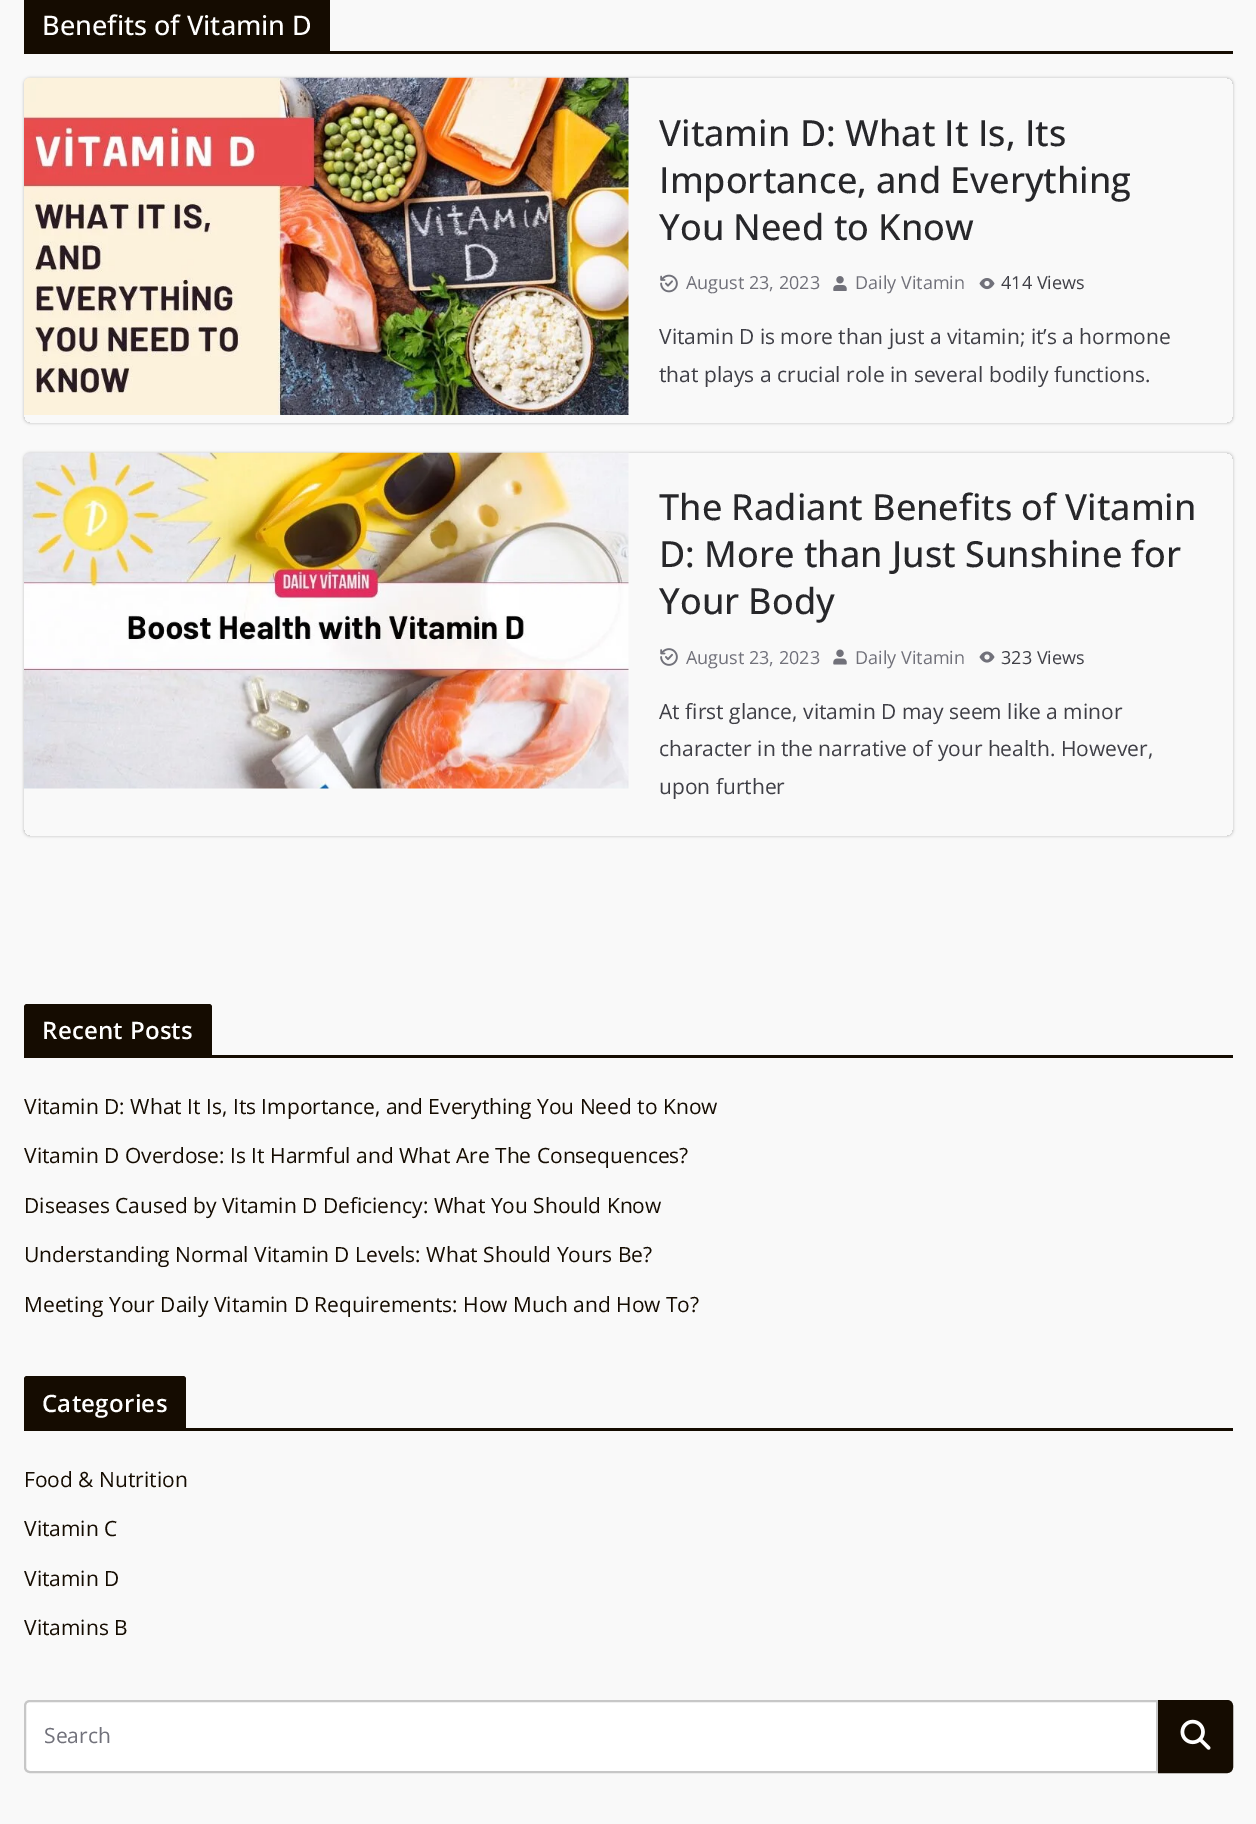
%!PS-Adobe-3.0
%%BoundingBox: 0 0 1256 1824
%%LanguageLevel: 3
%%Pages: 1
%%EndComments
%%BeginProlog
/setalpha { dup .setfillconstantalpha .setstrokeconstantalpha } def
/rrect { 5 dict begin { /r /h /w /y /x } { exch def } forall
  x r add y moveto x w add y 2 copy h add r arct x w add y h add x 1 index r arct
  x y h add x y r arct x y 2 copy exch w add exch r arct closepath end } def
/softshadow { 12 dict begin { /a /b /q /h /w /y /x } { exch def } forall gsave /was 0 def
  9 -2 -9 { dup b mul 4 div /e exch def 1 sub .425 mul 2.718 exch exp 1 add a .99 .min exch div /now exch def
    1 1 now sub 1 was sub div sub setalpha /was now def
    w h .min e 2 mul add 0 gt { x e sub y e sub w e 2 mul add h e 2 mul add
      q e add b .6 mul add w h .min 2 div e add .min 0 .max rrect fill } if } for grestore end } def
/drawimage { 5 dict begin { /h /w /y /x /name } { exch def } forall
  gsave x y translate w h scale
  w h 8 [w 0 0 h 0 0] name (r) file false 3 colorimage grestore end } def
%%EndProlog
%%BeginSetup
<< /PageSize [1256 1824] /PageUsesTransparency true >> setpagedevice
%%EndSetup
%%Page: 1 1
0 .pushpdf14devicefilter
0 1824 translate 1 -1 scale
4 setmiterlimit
0.976 setgray
0 0 1256 1824 rectfill
0.082 0.047 0.004 setrgbcolor
24 51 1209 3 rectfill
24 0 306 51 rectfill
gsave
newpath 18 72 moveto 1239 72 lineto 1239 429 lineto 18 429 lineto closepath 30 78 moveto 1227 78 lineto 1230.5 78 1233 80.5 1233 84 curveto 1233 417 lineto 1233 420.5 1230.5 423 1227 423 curveto 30 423 lineto 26.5 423 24 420.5 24 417 curveto 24 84 lineto 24 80.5 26.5 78 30 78 curveto closepath eoclip newpath
0 setgray
24 78 1209 345 6 1.5 0.24 softshadow
grestore
(images/1.raw) 24 77 605 338 drawimage
(images/2.raw) 660 274 18 19 drawimage
(images/3.raw) 833 276 14 15 drawimage
(images/4.raw) 979 278 16 12 drawimage
gsave
newpath 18 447 moveto 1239 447 lineto 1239 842 lineto 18 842 lineto closepath 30 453 moveto 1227 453 lineto 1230.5 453 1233 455.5 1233 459 curveto 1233 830 lineto 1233 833.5 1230.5 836 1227 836 curveto 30 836 lineto 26.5 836 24 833.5 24 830 curveto 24 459 lineto 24 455.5 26.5 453 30 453 curveto closepath eoclip newpath
0 setgray
24 453 1209 383 6 1.5 0.24 softshadow
grestore
(images/5.raw) 24 452 605 337 drawimage
(images/6.raw) 660 648 18 18 drawimage
(images/7.raw) 833 649 14 16 drawimage
(images/8.raw) 979 651 16 12 drawimage
24 1055 1209 3 rectfill
newpath 27 1004 moveto 209 1004 lineto 210.5 1004 212 1005.5 212 1007 curveto 212 1055 lineto 24 1055 lineto 24 1007 lineto 24 1005.5 25.5 1004 27 1004 curveto closepath fill
24 1428 1209 3 rectfill
newpath 27 1376 moveto 183 1376 lineto 184.5 1376 186 1377.5 186 1379 curveto 186 1428 lineto 24 1428 lineto 24 1379 lineto 24 1377.5 25.5 1376 27 1376 curveto closepath fill
1 setgray
newpath 30 1701 moveto 1157 1701 lineto 1157 1772 lineto 30 1772 lineto 27 1772 25 1770 25 1767 curveto 25 1706 lineto 25 1703 27 1701 30 1701 curveto closepath gsave fill grestore
0.78 setgray
2 setlinewidth
stroke
0.082 0.047 0.004 setrgbcolor
newpath 1159 1701 moveto 1227 1701 lineto 1230 1701 1232 1703 1232 1706 curveto 1232 1767 lineto 1232 1770 1230 1772 1227 1772 curveto 1159 1772 lineto closepath gsave fill grestore
stroke
(images/9.raw) 1180 1719 31 31 drawimage
/OpenSans-Medium [27 0 0 -27 0 0] selectfont
1 setgray
42 35 moveto (Benefits of Vitamin D) show
/OpenSans-Medium [36 0 0 -36 0 0] selectfont
0.153 0.153 0.165 setrgbcolor
659 146 moveto (Vitamin D: What It Is, Its) show
659 193 moveto (Importance, and Everything) show
659 240 moveto (You Need to Know) show
/OpenSans-Regular [18 0 0 -18 0 0] selectfont
0.443 0.443 0.478 setrgbcolor
686 289 moveto (August 23, 2023) show
855 289 moveto (Daily Vitamin) show
0.247 0.247 0.275 setrgbcolor
1001 289 moveto (414 Views) show
/OpenSans-Regular [21 0 0 -21 0 0] selectfont
659 344 moveto (Vitamin D is more than just a vitamin; it’s a hormone) show
659 382 moveto (that plays a crucial role in several bodily functions.) show
/OpenSans-Medium [36 0 0 -36 0 0] selectfont
0.153 0.153 0.165 setrgbcolor
659 520 moveto (The Radiant Benefits of Vitamin) show
659 567 moveto (D: More than Just Sunshine for) show
659 614 moveto (Your Body) show
/OpenSans-Regular [18 0 0 -18 0 0] selectfont
0.443 0.443 0.478 setrgbcolor
686 664 moveto (August 23, 2023) show
855 664 moveto (Daily Vitamin) show
0.247 0.247 0.275 setrgbcolor
1001 664 moveto (323 Views) show
/OpenSans-Regular [21 0 0 -21 0 0] selectfont
659 719 moveto (At first glance, vitamin D may seem like a minor) show
659 756 moveto (character in the narrative of your health. However,) show
659 794 moveto (upon further) show
/OpenSans-SemiBold [24 0 0 -24 0 0] selectfont
1 setgray
42 1039 moveto 0.25 0 (Recent Posts) ashow
/OpenSans-Regular [21 0 0 -21 0 0] selectfont
0.082 0.047 0.004 setrgbcolor
24 1114 moveto (Vitamin D: What It Is, Its Importance, and Everything You Need to Know) show
24 1163 moveto (Vitamin D Overdose: Is It Harmful and What Are The Consequences?) show
24 1213 moveto (Diseases Caused by Vitamin D Deficiency: What You Should Know) show
24 1262 moveto (Understanding Normal Vitamin D Levels: What Should Yours Be?) show
24 1312 moveto (Meeting Your Daily Vitamin D Requirements: How Much and How To?) show
/OpenSans-SemiBold [24 0 0 -24 0 0] selectfont
1 setgray
42 1412 moveto 0.25 0 (Categories) ashow
/OpenSans-Regular [21 0 0 -21 0 0] selectfont
0.082 0.047 0.004 setrgbcolor
24 1487 moveto (Food & Nutrition) show
24 1536 moveto (Vitamin C) show
24 1586 moveto (Vitamin D) show
24 1635 moveto (Vitamins B) show
0.443 0.443 0.478 setrgbcolor
44 1743 moveto (Search) show
.poppdf14devicefilter showpage
%%EOF
